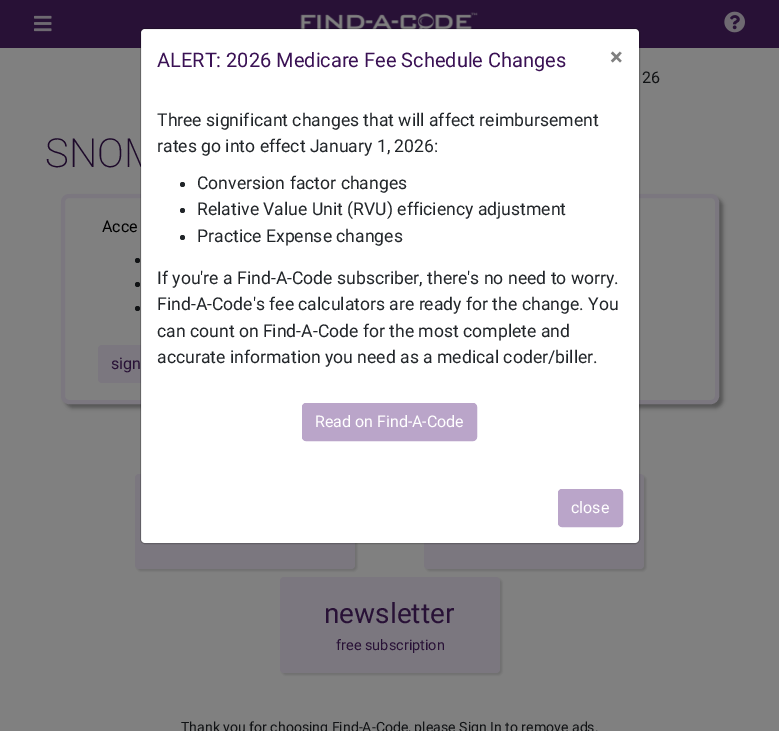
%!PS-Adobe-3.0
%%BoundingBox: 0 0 779 731
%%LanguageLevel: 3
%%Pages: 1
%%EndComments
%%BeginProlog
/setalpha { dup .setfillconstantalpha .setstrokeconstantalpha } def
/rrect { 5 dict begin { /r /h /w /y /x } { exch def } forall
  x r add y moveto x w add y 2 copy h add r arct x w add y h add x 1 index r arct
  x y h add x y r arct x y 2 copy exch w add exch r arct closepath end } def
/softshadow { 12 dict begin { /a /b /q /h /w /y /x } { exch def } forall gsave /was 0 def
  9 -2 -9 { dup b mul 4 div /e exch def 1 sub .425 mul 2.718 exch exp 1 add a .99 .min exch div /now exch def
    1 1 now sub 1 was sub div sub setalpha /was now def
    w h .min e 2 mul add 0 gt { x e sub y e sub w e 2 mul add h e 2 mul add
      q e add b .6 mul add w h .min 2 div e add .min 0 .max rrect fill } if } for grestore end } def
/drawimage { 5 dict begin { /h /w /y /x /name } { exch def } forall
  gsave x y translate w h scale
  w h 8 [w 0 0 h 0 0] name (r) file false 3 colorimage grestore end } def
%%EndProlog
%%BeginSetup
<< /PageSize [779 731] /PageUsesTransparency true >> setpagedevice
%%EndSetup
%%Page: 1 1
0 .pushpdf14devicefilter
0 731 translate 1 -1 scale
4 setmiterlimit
0.502 setgray
0 0 779 731 rectfill
gsave
newpath 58 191 moveto 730 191 lineto 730 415 lineto 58 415 lineto closepath 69 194 moveto 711 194 lineto 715.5 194 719 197.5 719 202 curveto 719 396 lineto 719 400.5 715.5 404 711 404 curveto 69 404 lineto 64.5 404 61 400.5 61 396 curveto 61 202 lineto 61 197.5 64.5 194 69 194 curveto closepath eoclip newpath
0.333 setgray
65 198 658 210 8 2 1 softshadow
grestore
0.482 0.467 0.498 setrgbcolor
4 setlinewidth
63 196 654 206 6 rrect stroke
0.067 0.075 0.082 setrgbcolor
newpath 137.5 260.5 2.5 0 360 arc closepath fill
newpath 137.5 284.5 2.5 0 360 arc closepath fill
newpath 137.5 308.5 2.5 0 360 arc closepath fill
0.482 0.467 0.498 setrgbcolor
98 345 72 38 4 rrect fill
0.435 setgray
137 476 220 95 4 1 1 softshadow
0.482 0.467 0.498 setrgbcolor
135 474 220 95 4 rrect fill
0.435 setgray
426 476 220 95 4 1 1 softshadow
0.482 0.467 0.498 setrgbcolor
424 474 220 95 4 rrect fill
0.435 setgray
282 579 220 96 4 1 1 softshadow
0.482 0.467 0.498 setrgbcolor
280 577 220 96 4 rrect fill
0.157 0.067 0.212 setrgbcolor
0 0 779 48 rectfill
(images/1.raw) 34 15 18 17 drawimage
(images/2.raw) 300 12 178 17 drawimage
(images/3.raw) 724 11 21 22 drawimage
/Roboto-ExtraLight [40 0 0 -40 0 0] selectfont
0.114 0.035 0.165 setrgbcolor
45 167 moveto (SNOM) show
1 setgray
141 29 498 514 4 rrect fill
0.2 setalpha
0 setgray
1 setlinewidth
140.5 28.5 499 515 4.5 rrect stroke
/Roboto-Regular [20 0 0 -20 0 0] selectfont
1 setalpha
0.227 0.067 0.329 setrgbcolor
157 67 moveto (ALERT: 2026 Medicare Fee Schedule Changes) show
/Roboto-Bold [24 0 0 -24 0 0] selectfont
0.502 setgray
610 65 moveto (×) show
/Roboto-Regular [17.6 0 0 -17.6 0 0] selectfont
0.129 0.145 0.161 setrgbcolor
157 126 moveto (Three significant changes that will affect reimbursement) show
157 152 moveto (rates go into effect January 1, 2026:) show
newpath 182.5 184.5 2.5 0 360 arc closepath fill
197 189 moveto (Conversion factor changes) show
newpath 182.5 210.5 2.5 0 360 arc closepath fill
197 215 moveto (Relative Value Unit \(RVU\) efficiency adjustment) show
newpath 182.5 237.5 2.5 0 360 arc closepath fill
197 242 moveto (Practice Expense changes) show
157 284 moveto (If you're a Find-A-Code subscriber, there's no need to worry.) show
157 310 moveto (Find-A-Code's fee calculators are ready for the change. You) show
157 337 moveto (can count on Find-A-Code for the most complete and) show
157 363 moveto (accurate information you need as a medical coder/biller.) show
0.729 0.647 0.788 setrgbcolor
302.5 403.5 174 37 3.5 rrect gsave fill grestore
stroke
/Roboto-Regular [16 0 0 -16 0 0] selectfont
1 setgray
315 427 moveto (Read on Find-A-Code) show
0.729 0.647 0.788 setrgbcolor
558.5 489.5 64 37 3.5 rrect gsave fill grestore
stroke
1 setgray
571 513 moveto (close) show
0 setgray
102 232 moveto (Acce) show
0.157 0.067 0.212 setrgbcolor
111 369 moveto (sign) show
/Roboto-Regular [28 0 0 -28 0 0] selectfont
324 623 moveto (newsletter) show
/Roboto-Regular [14.5 0 0 -14.5 0 0] selectfont
336 650 moveto (free subscription) show
/Roboto-Regular [14.1 0 0 -14.1 0 0] selectfont
0.067 0.075 0.082 setrgbcolor
181 732 moveto (Thank you for choosing Find-A-Code, please Sign In to remove ads.) show
/Roboto-Regular [16 0 0 -16 0 0] selectfont
642 83 moveto (26) show
.poppdf14devicefilter showpage
%%EOF
